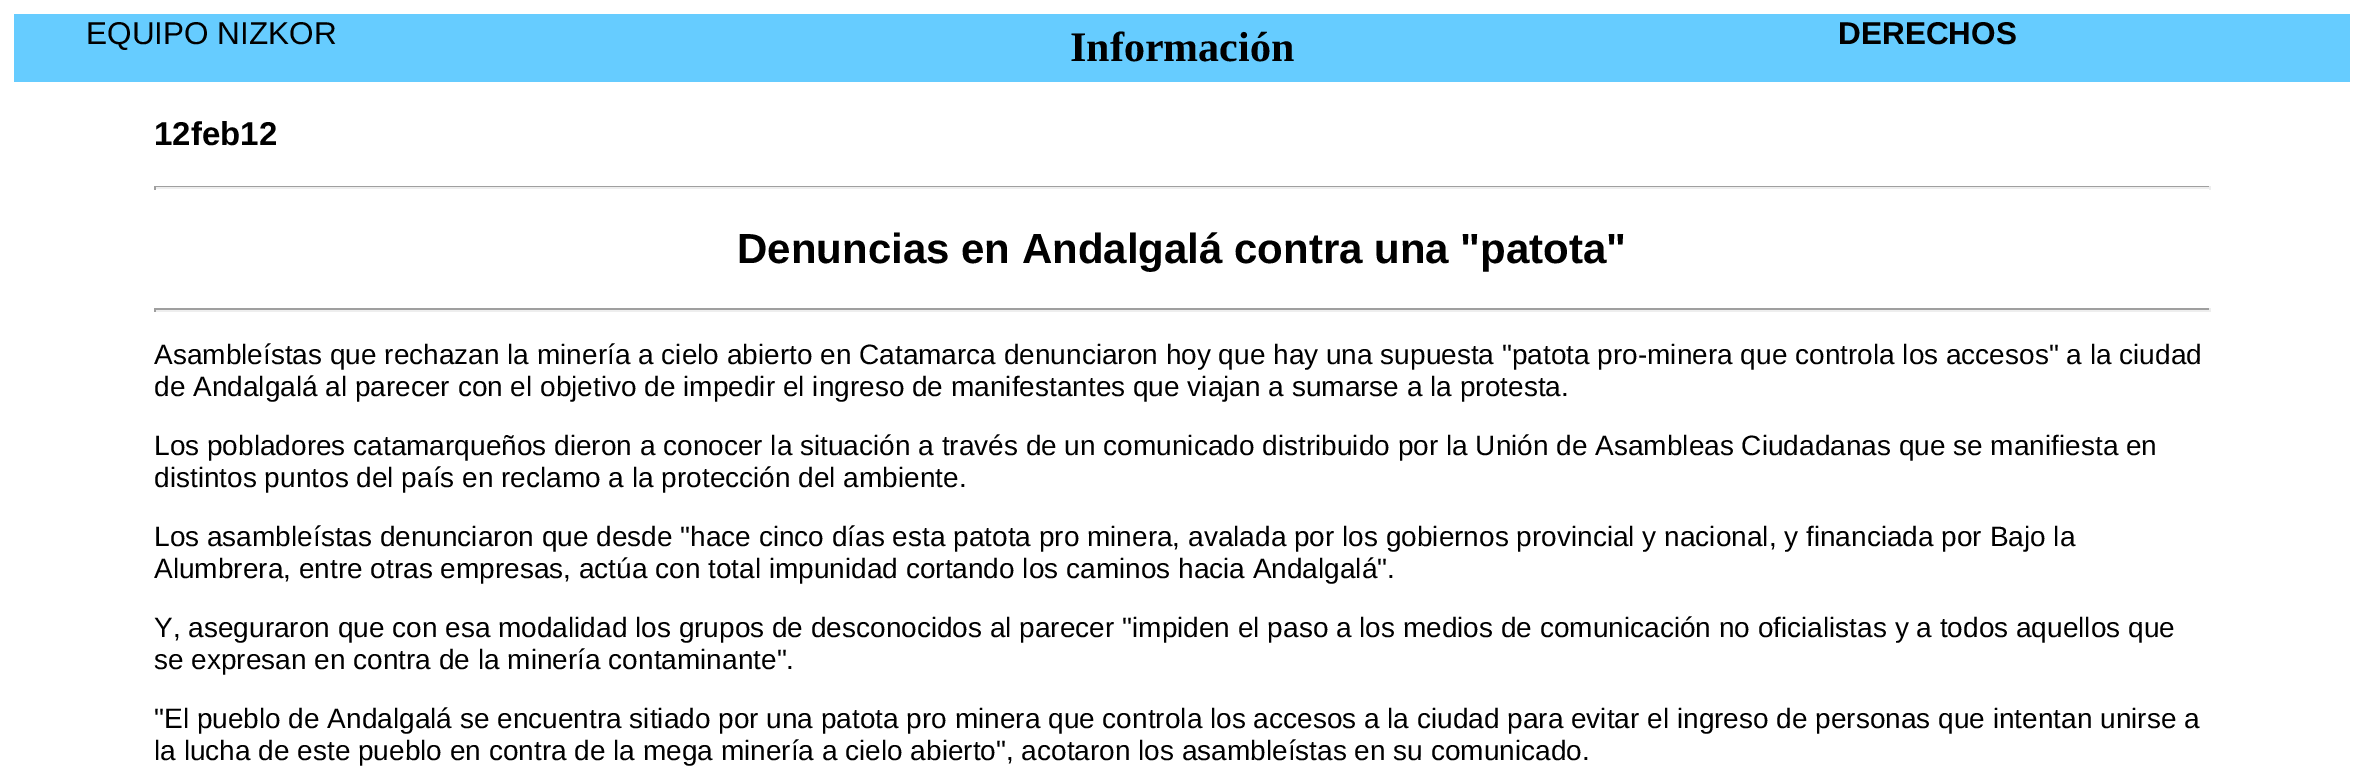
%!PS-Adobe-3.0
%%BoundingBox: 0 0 2363 779
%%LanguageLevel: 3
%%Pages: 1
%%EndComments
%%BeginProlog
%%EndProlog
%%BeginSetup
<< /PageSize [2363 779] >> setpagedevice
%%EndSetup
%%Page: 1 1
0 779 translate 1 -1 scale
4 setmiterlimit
1 setgray
0 0 2363 779 rectfill
0.4 0.8 1 setrgbcolor
14 14 2336 68 rectfill
0.624 setgray
154 186 2056 1 rectfill
0.933 setgray
2209 186 2 4 rectfill
154 187 2056 2 rectfill
0.624 setgray
154 186 2 4 rectfill
154 308 2056 2 rectfill
0.933 setgray
2209 308 2 4 rectfill
154 310 2056 2 rectfill
0.624 setgray
154 308 2 4 rectfill
/LiberationSans-Regular [31.5 0 0 -31.5 0 0] selectfont
0 setgray
86 44 moveto (EQUIPO NIZKOR) show
/LiberationSerif-Bold [42 0 0 -42 0 0] selectfont
1070 61 moveto (Información) show
/LiberationSans-Bold [31.5 0 0 -31.5 0 0] selectfont
1838 44 moveto (DERECHOS) show
/LiberationSans-Bold [33 0 0 -33 0 0] selectfont
154 145 moveto (12feb12) show
/LiberationSans-Bold [42 0 0 -42 0 0] selectfont
737 263 moveto (Denuncias en Andalgalá contra una "patota") show
/LiberationSans-Regular [28 0 0 -28 0 0] selectfont
154 364 moveto (Asambleístas que rechazan la minería a cielo abierto en Catamarca denunciaron hoy que hay una supuesta "patota pro-minera que controla los accesos" a la ciudad) show
154 396 moveto (de Andalgalá al parecer con el objetivo de impedir el ingreso de manifestantes que viajan a sumarse a la protesta.) show
154 455 moveto (Los pobladores catamarqueños dieron a conocer la situación a través de un comunicado distribuido por la Unión de Asambleas Ciudadanas que se manifiesta en) show
154 487 moveto (distintos puntos del país en reclamo a la protección del ambiente.) show
154 546 moveto (Los asambleístas denunciaron que desde "hace cinco días esta patota pro minera, avalada por los gobiernos provincial y nacional, y financiada por Bajo la) show
154 578 moveto (Alumbrera, entre otras empresas, actúa con total impunidad cortando los caminos hacia Andalgalá".) show
154 637 moveto (Y, aseguraron que con esa modalidad los grupos de desconocidos al parecer "impiden el paso a los medios de comunicación no oficialistas y a todos aquellos que) show
154 669 moveto (se expresan en contra de la minería contaminante".) show
154 728 moveto ("El pueblo de Andalgalá se encuentra sitiado por una patota pro minera que controla los accesos a la ciudad para evitar el ingreso de personas que intentan unirse a) show
154 760 moveto (la lucha de este pueblo en contra de la mega minería a cielo abierto", acotaron los asambleístas en su comunicado.) show
showpage
%%EOF
